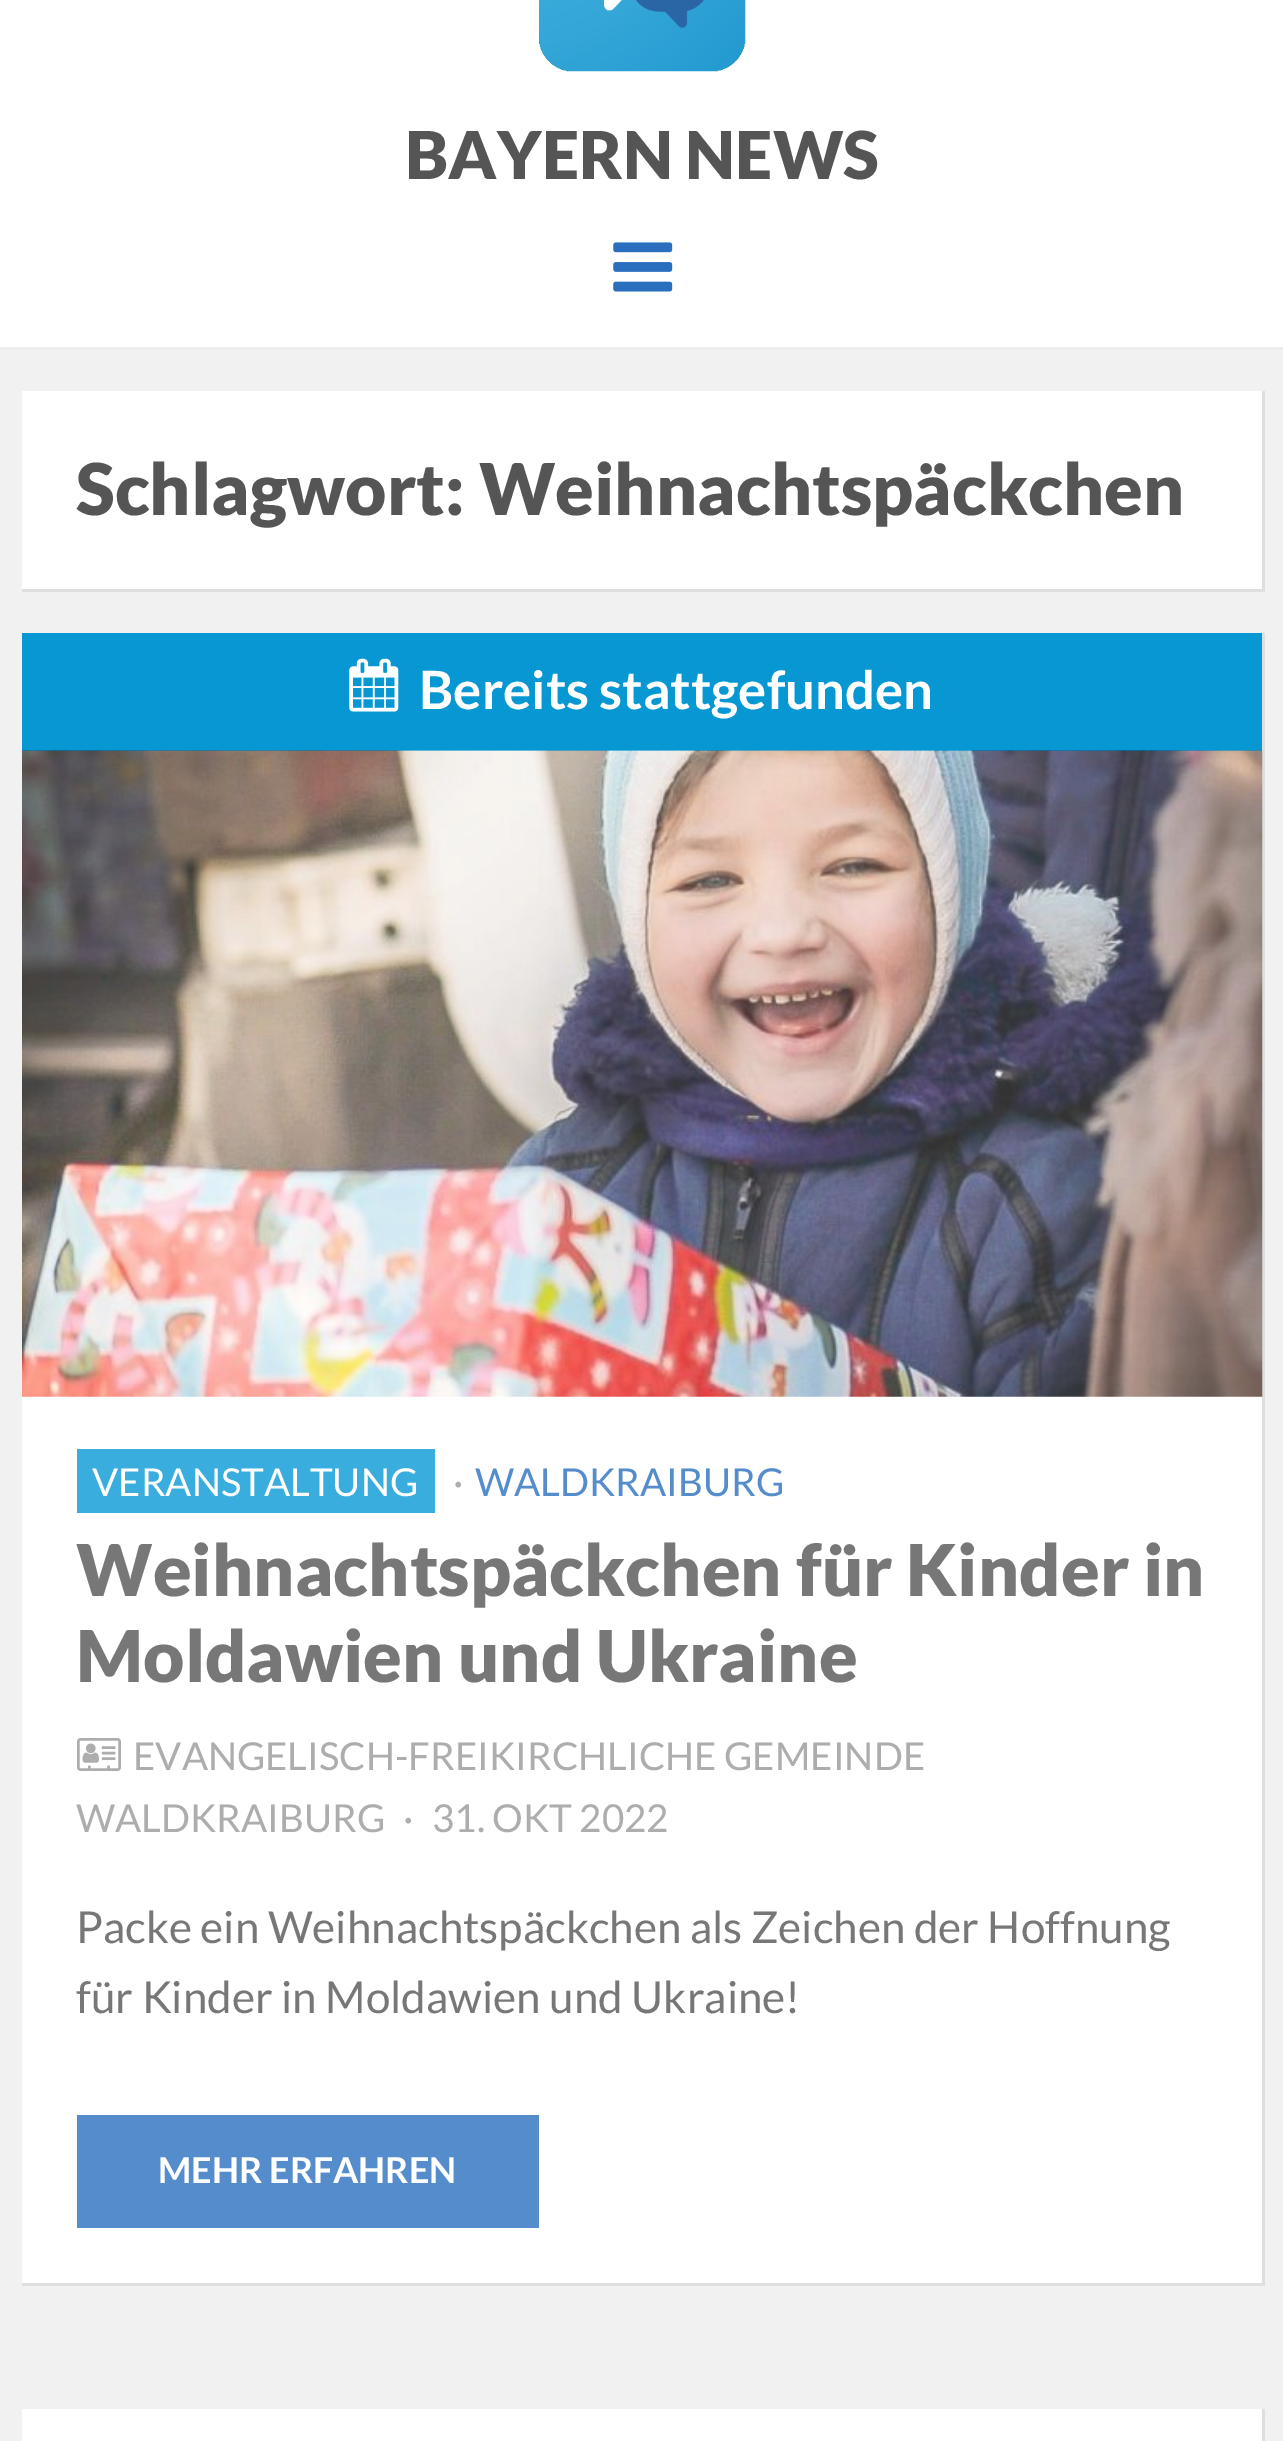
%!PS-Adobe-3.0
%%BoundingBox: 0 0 1283 2441
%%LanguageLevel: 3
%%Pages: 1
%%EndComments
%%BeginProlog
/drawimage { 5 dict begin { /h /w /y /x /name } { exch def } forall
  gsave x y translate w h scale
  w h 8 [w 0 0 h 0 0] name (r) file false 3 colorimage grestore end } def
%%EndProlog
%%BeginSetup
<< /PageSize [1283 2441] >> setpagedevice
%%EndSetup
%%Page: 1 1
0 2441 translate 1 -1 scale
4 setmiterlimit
0.945 setgray
0 0 1283 2441 rectfill
1 setgray
0 0 1283 347 rectfill
0.933 setgray
0 347 1283 3 rectfill
(images/1.raw) 539 0 207 72 drawimage
(images/2.raw) 613 242 60 50 drawimage
1 setgray
22 391 1240 198 rectfill
0.875 0.875 0.867 setrgbcolor
1262 391 3 200 rectfill
22 589 1243 3 rectfill
1 setgray
22 751 1240 1532 rectfill
0.875 0.875 0.867 setrgbcolor
1262 633 3 1652 rectfill
22 2283 1243 3 rectfill
0.027 0.596 0.831 setrgbcolor
22 633 1240 118 rectfill
(images/3.raw) 349 658 50 54 drawimage
(images/4.raw) 22 750 1241 647 drawimage
0.224 0.678 0.867 setrgbcolor
77 1449 358 64 rectfill
(images/5.raw) 77 1738 44 33 drawimage
0.333 0.549 0.796 setrgbcolor
77 2115 462 113 rectfill
1 setgray
22 2409 1240 32 rectfill
0.875 0.875 0.867 setrgbcolor
1262 2409 3 32 rectfill
/Lato-Black [66 0 0 -66 0 0] selectfont
0.333 setgray
405 179 moveto (BAYERN NEWS) show
/Lato-Black [71.5 0 0 -71.5 0 0] selectfont
76 515 moveto (Schlagwort: Weihnachtspäckchen) show
/Lato-Bold [52.75 0 0 -52.75 0 0] selectfont
1 setgray
419 709 moveto (Bereits stattgefunden) show
/Lato-Regular [38.5 0 0 -38.5 0 0] selectfont
92 1496 moveto (VERANSTALTUNG) show
0.678 setgray
453 1496 moveto (·) show
0.333 0.549 0.796 setrgbcolor
475 1496 moveto (WALDKRAIBURG) show
/Lato-Black [71.5 0 0 -71.5 0 0] selectfont
0.467 setgray
76 1596 moveto (Weihnachtspäckchen für Kinder in) show
76 1682 moveto (Moldawien und Ukraine) show
/Lato-Regular [38.5 0 0 -38.5 0 0] selectfont
0.678 setgray
133 1770 moveto (EVANGELISCH-FREIKIRCHLICHE GEMEINDE) show
76 1832 moveto (WALDKRAIBURG) show
403 1832 moveto (·) show
432 1832 moveto (31. OKT 2022) show
/Lato-Regular [44 0 0 -44 0 0] selectfont
0.467 setgray
76 1943 moveto (Packe ein Weihnachtspäckchen als Zeichen der Hoffnung) show
76 2013 moveto (für Kinder in Moldawien und Ukraine!) show
/Lato-Bold [35.75 0 0 -35.75 0 0] selectfont
1 setgray
158 2183 moveto (MEHR ERFAHREN) show
showpage
%%EOF
